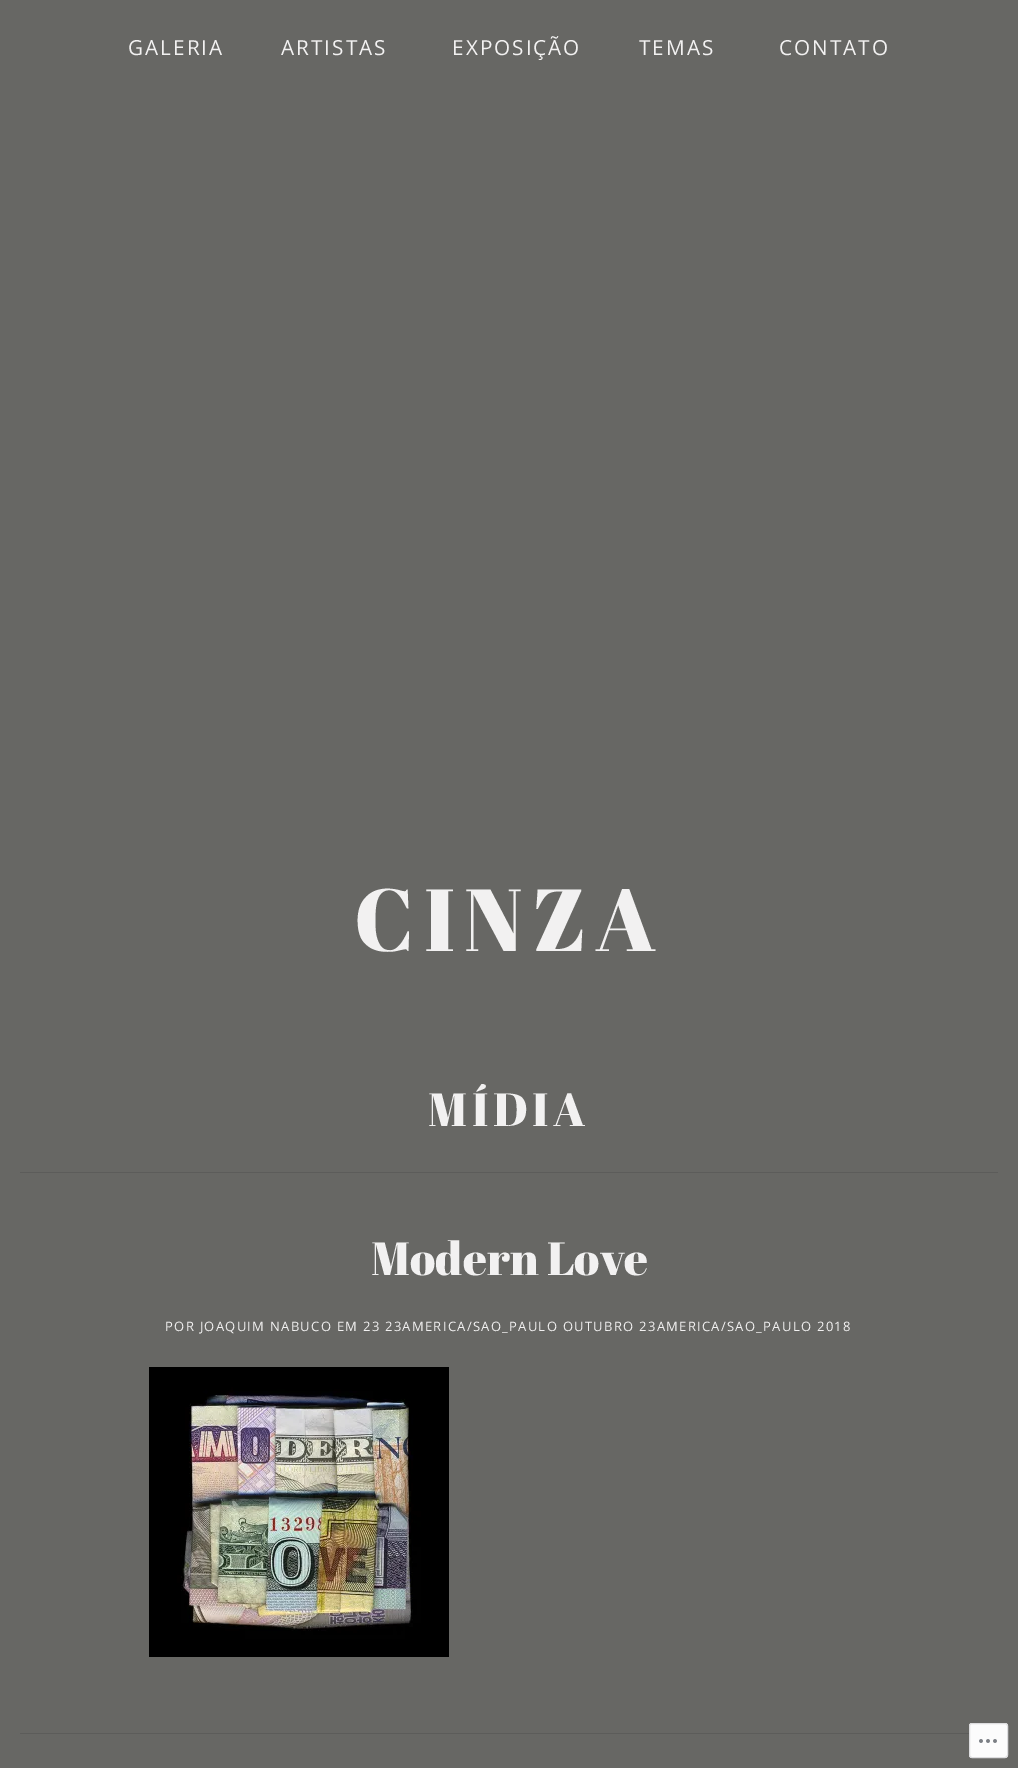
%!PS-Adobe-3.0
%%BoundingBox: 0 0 1018 1768
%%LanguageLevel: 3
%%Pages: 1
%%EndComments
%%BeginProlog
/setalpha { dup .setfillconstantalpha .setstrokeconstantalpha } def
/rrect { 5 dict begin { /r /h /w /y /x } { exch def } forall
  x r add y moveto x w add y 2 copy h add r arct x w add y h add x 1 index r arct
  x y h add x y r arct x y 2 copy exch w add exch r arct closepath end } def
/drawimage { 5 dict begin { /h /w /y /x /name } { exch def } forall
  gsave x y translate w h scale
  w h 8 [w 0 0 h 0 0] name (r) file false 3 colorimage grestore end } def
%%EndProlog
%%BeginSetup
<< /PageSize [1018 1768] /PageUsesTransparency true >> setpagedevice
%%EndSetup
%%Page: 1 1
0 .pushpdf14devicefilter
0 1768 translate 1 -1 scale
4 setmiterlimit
0.404 0.404 0.392 setrgbcolor
0 0 1018 1768 rectfill
0.361 0.361 0.353 setrgbcolor
20 1172 978 1 rectfill
(images/1.raw) 149 1367 300 290 drawimage
20 1733 978 1 rectfill
0.98 setalpha
1 setgray
969 1723 39 35 3 rrect fill
0.863 0.863 0.871 setrgbcolor
969.5 1723.5 38 34 2.5 rrect stroke
1 setalpha
(images/2.raw) 979 1739 18 4 drawimage
/OpenSans-Regular [20.75 0 0 -20.75 0 0] selectfont
0.949 0.945 0.945 setrgbcolor
128 55 moveto 2 0 (GALERIA) ashow
281 55 moveto 2 0 (ARTISTAS) ashow
452 55 moveto 2 0 (EXPOSIÇÃO) ashow
639 55 moveto 2 0 (TEMAS) ashow
779 55 moveto 2 0 (CONTATO) ashow
/AbrilFatface-Regular [88 0 0 -88 0 0] selectfont
354 951 moveto 9 0 (CINZA) ashow
/AbrilFatface-Regular [46.5 0 0 -46.5 0 0] selectfont
428 1126 moveto 4.5 0 (MÍDIA) ashow
371 1275 moveto (Modern Love) show
/OpenSans-Regular [13 0 0 -13 0 0] selectfont
165 1331 moveto 1.3 0 (POR JOAQUIM NABUCO EM 23 23AMERICA/SAO_PAULO OUTUBRO 23AMERICA/SAO_PAULO 2018) ashow
.poppdf14devicefilter showpage
%%EOF
